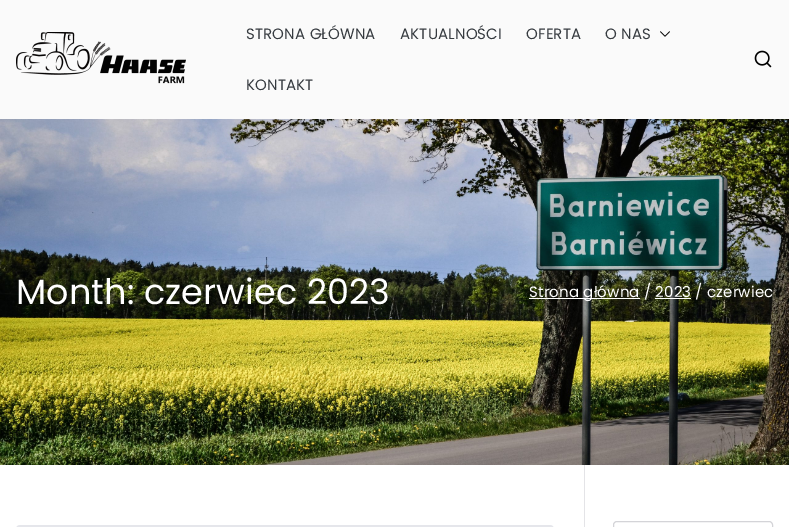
%!PS-Adobe-3.0
%%BoundingBox: 0 0 789 527
%%LanguageLevel: 3
%%Pages: 1
%%EndComments
%%BeginProlog
/rrect { 5 dict begin { /r /h /w /y /x } { exch def } forall
  x r add y moveto x w add y 2 copy h add r arct x w add y h add x 1 index r arct
  x y h add x y r arct x y 2 copy exch w add exch r arct closepath end } def
/drawimage { 5 dict begin { /h /w /y /x /name } { exch def } forall
  gsave x y translate w h scale
  w h 8 [w 0 0 h 0 0] name (r) file false 3 colorimage grestore end } def
%%EndProlog
%%BeginSetup
<< /PageSize [789 527] >> setpagedevice
%%EndSetup
%%Page: 1 1
0 527 translate 1 -1 scale
4 setmiterlimit
0.98 setgray
0 0 789 527 rectfill
(images/1.raw) 16 32 170 52 drawimage
(images/2.raw) 660 31 10 6 drawimage
(images/3.raw) 754 50 18 18 drawimage
(images/4.raw) 0 119 789 346 drawimage
1 setgray
529 298 111 1 rectfill
655 298 36 1 rectfill
0 465 789 62 rectfill
(images/5.raw) 16 525 538 2 drawimage
0.894 0.894 0.906 setrgbcolor
584 465 1 62 rectfill
0.831 0.831 0.847 setrgbcolor
613.5 521.5 159 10 3.5 rrect stroke
/Poppins-Regular [15 0 0 -15 0 0] selectfont
0.212 0.231 0.251 setrgbcolor
246 39 moveto 0.15 0 (STRONA GŁÓWNA) ashow
400 39 moveto 0.15 0 (AKTUALNOŚCI) ashow
526 39 moveto 0.15 0 (OFERTA) ashow
605 39 moveto 0.15 0 (O NAS) ashow
246 90 moveto 0.15 0 (KONTAKT) ashow
/Poppins-Regular [35 0 0 -35 0 0] selectfont
1 setgray
16 304 moveto 0.15 0 (Month: czerwiec 2023) ashow
/Poppins-Regular [15 0 0 -15 0 0] selectfont
529 297 moveto 0.15 0 (Strona główna / 2023 / czerwiec) ashow
showpage
%%EOF
